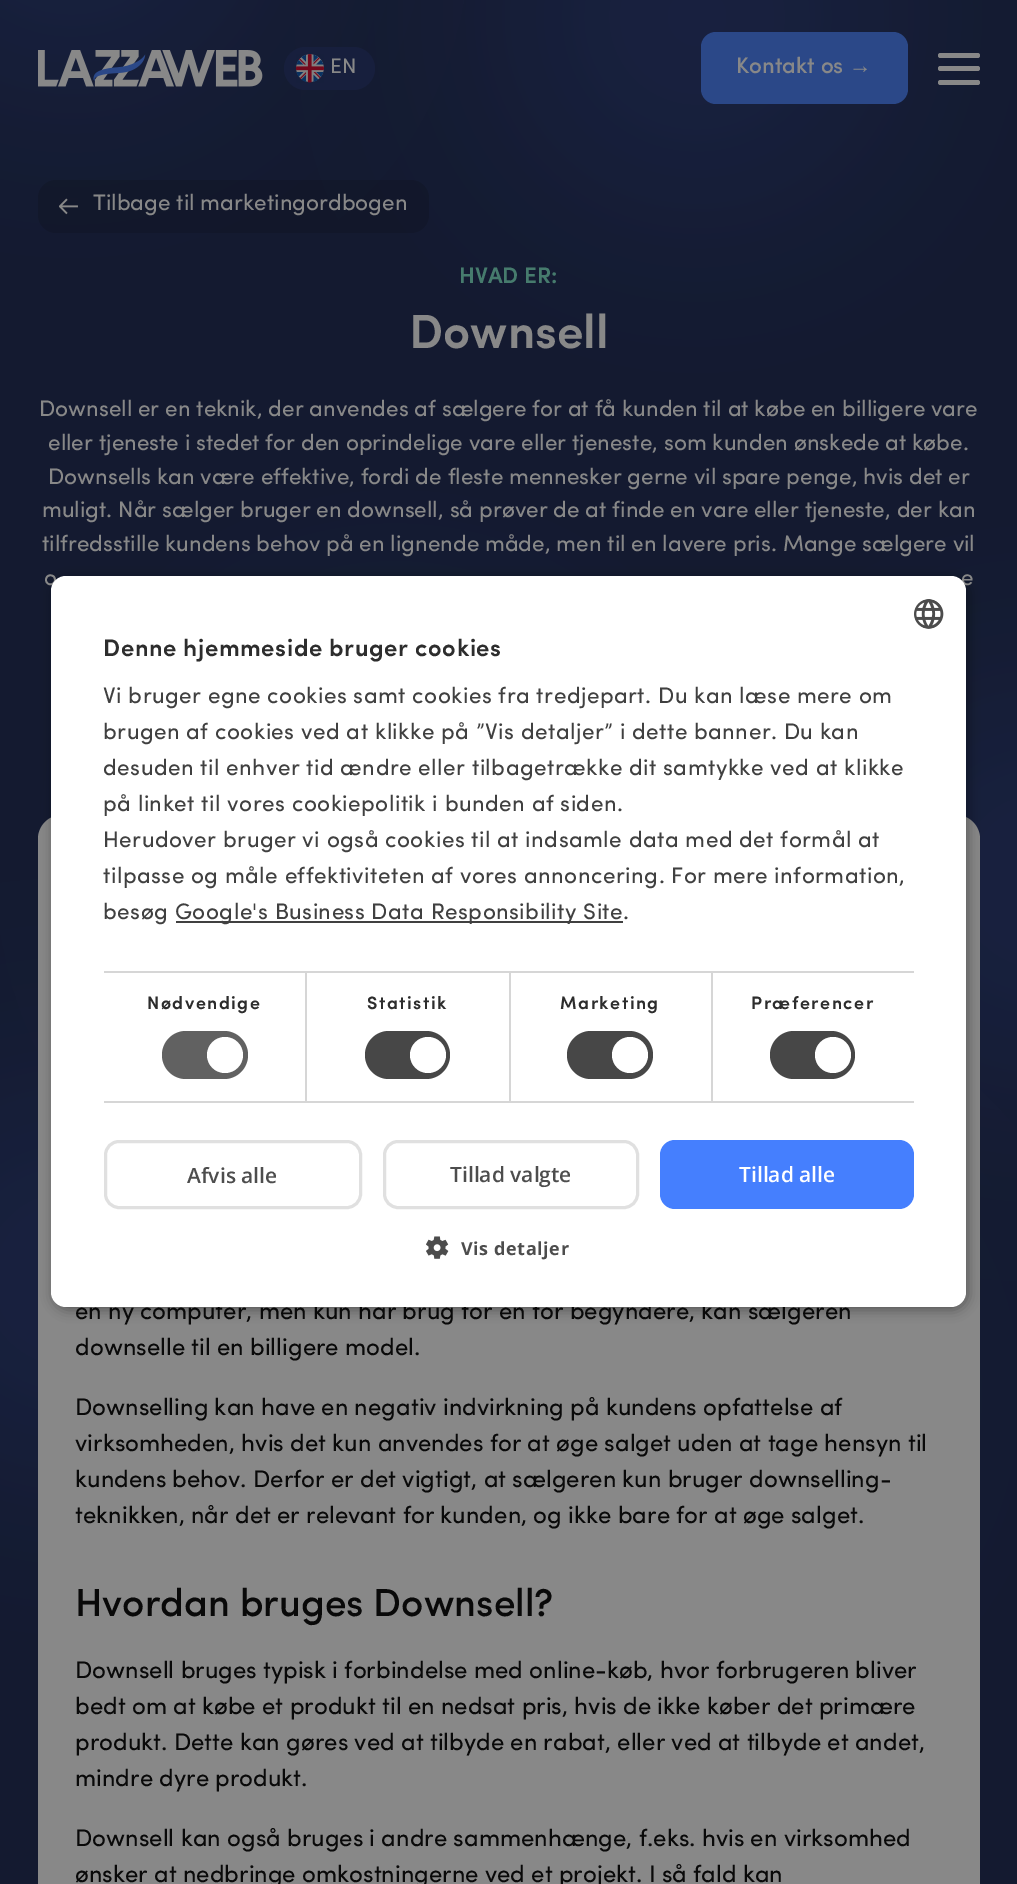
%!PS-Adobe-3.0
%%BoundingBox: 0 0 1017 1884
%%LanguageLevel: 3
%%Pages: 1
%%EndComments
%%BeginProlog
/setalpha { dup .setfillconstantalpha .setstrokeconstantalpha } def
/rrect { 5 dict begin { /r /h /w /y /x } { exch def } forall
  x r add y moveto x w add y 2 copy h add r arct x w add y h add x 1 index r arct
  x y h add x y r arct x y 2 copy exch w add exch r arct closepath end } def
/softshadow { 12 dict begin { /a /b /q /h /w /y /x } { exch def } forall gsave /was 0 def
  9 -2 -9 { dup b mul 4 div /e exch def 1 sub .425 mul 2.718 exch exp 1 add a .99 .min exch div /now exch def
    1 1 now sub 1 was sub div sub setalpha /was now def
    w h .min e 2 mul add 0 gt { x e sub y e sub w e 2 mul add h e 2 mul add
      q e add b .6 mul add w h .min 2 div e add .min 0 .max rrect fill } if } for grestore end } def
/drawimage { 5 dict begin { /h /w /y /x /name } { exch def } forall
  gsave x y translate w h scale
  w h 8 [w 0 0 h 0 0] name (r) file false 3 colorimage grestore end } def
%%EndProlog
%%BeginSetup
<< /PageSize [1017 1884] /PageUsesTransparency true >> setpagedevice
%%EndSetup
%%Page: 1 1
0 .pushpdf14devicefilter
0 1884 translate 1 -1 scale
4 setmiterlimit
0.078 0.102 0.188 setrgbcolor
0 0 1017 1884 rectfill
(images/1.raw) 0 0 1017 1688 drawimage
(images/2.raw) 38 50 225 37 drawimage
0.09 0.122 0.239 setrgbcolor
284 47 91 43 21.5 rrect fill
(images/3.raw) 296 54 28 29 drawimage
0.169 0.282 0.533 setrgbcolor
701 32 207 72 15 rrect fill
0.533 setgray
938 53 42 5 2.5 rrect fill
938 66 42 5 2.5 rrect fill
938 80 42 5 2.5 rrect fill
0.16 setalpha
0.035 setgray
38 180 391 53 18 rrect fill
1 setalpha
(images/4.raw) 59 198 19 17 drawimage
0.533 setgray
38 815 942 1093 24 rrect fill
0 setgray
53 579 915 731 15 6 0.35 softshadow
/Sofia-Regular [21 0 0 -21 0 0] selectfont
0.533 setgray
330 73 moveto (EN) show
/Sofia-Medium [22.5 0 0 -22.5 0 0] selectfont
736 73 moveto (Kontakt os) show
/LiberationSerif-Regular [22.5 0 0 -22.5 0 0] selectfont
849 73 moveto (→) show
/Sofia-Regular [22.5 0 0 -22.5 0 0] selectfont
93 210 moveto (Tilbage til marketingordbogen) show
/Sofia-SemiBold [22.5 0 0 -22.5 0 0] selectfont
0.275 0.482 0.427 setrgbcolor
459 283 moveto (HVAD ER:) show
/Sofia-SemiBold [48 0 0 -48 0 0] selectfont
0.533 setgray
409 348 moveto (Downsell) show
/Sofia-Regular [22.5 0 0 -22.5 0 0] selectfont
39 416 moveto (Downsell er en teknik, der anvendes af sælgere for at få kunden til at købe en billigere vare) show
48 450 moveto (eller tjeneste i stedet for den oprindelige vare eller tjeneste, som kunden ønskede at købe.) show
48 484 moveto (Downsells kan være effektive, fordi de fleste mennesker gerne vil spare penge, hvis det er) show
42 517 moveto (muligt. Når sælger bruger en downsell, så prøver de at finde en vare eller tjeneste, der kan) show
42 551 moveto (tilfredsstille kundens behov på en lignende måde, men til en lavere pris. Mange sælgere vil) show
44 585 moveto (o) show
961 585 moveto (e) show
/Sofia-Regular [24 0 0 -24 0 0] selectfont
0.035 setgray
75 1319 moveto (en ny computer, men kun har brug for en for begyndere, kan sælgeren) show
75 1355 moveto (downselle til en billigere model.) show
75 1415 moveto (Downselling kan have en negativ indvirkning på kundens opfattelse af) show
75 1451 moveto (virksomheden, hvis det kun anvendes for at øge salget uden at tage hensyn til) show
75 1487 moveto (kundens behov. Derfor er det vigtigt, at sælgeren kun bruger downselling-) show
75 1523 moveto (teknikken, når det er relevant for kunden, og ikke bare for at øge salget.) show
/Sofia-Medium [39 0 0 -39 0 0] selectfont
75 1616 moveto (Hvordan bruges Downsell?) show
/Sofia-Regular [24 0 0 -24 0 0] selectfont
75 1678 moveto (Downsell bruges typisk i forbindelse med online-køb, hvor forbrugeren bliver) show
75 1714 moveto (bedt om at købe et produkt til en nedsat pris, hvis de ikke køber det primære) show
75 1750 moveto (produkt. Dette kan gøres ved at tilbyde en rabat, eller ved at tilbyde et andet,) show
75 1786 moveto (mindre dyre produkt.) show
75 1846 moveto (Downsell kan også bruges i andre sammenhænge, f.eks. hvis en virksomhed) show
75 1882 moveto (ønsker at nedbringe omkostningerne ved et projekt. I så fald kan) show
1 setgray
51 576 915 731 15 rrect fill
(images/5.raw) 914 599 30 30 drawimage
/Sofia-SemiBold [24 0 0 -24 0 0] selectfont
0.176 setgray
103 656 moveto 0.6 0 (Denne hjemmeside bruger cookies) ashow
0.839 setgray
104 971 810 2 rectfill
/Sofia-Regular [22.5 0 0 -22.5 0 0] selectfont
0.251 setgray
103 703 moveto 0.45 0 (Vi bruger egne cookies samt cookies fra tredjepart. Du kan læse mere om) ashow
103 739 moveto 0.45 0 (brugen af cookies ved at klikke på ”Vis detaljer” i dette banner. Du kan) ashow
103 775 moveto 0.45 0 (desuden til enhver tid ændre eller tilbagetrække dit samtykke ved at klikke) ashow
103 811 moveto 0.45 0 (på linket til vores cookiepolitik i bunden af siden.) ashow
103 847 moveto 0.45 0 (Herudover bruger vi også cookies til at indsamle data med det formål at) ashow
103 883 moveto 0.45 0 (tilpasse og måle effektiviteten af vores annoncering. For mere information,) ashow
103 919 moveto 0.45 0 (besøg) ashow
176 921 447 2 rectfill
175 919 moveto 0.45 0 (Google's Business Data Responsibility Site.) ashow
0.839 setgray
104 1101 810 2 rectfill
305 972 2 129 rectfill
/Sofia-SemiBold [18 0 0 -18 0 0] selectfont
0.176 setgray
147 1009 moveto 1.5 0 (Nødvendige) ashow
0.38 setgray
162 1031 86 48 24 rrect fill
1 setgray
newpath 225 1055 18 0 360 arc closepath fill
0.839 setgray
509 972 2 129 rectfill
0.176 setgray
367 1009 moveto 1.5 0 (Statistik) ashow
0.278 setgray
365 1031 85 48 24 rrect fill
1 setgray
newpath 428 1055 18 0 360 arc closepath fill
0.839 setgray
711 972 2 129 rectfill
0.176 setgray
560 1009 moveto 1.5 0 (Marketing) ashow
0.278 setgray
567 1031 86 48 24 rrect fill
1 setgray
newpath 630 1055 18 0 360 arc closepath fill
0.176 setgray
751 1009 moveto 1.5 0 (Præferencer) ashow
0.278 setgray
770 1031 85 48 24 rrect fill
1 setgray
newpath 833 1055 18 0 360 arc closepath fill
0.878 setgray
3 setlinewidth
105.5 1141.5 255 66 13.5 rrect stroke
/OpenSans-SemiBold [21 0 0 -21 0 0] selectfont
0.302 setgray
187 1183 moveto (Afvis alle) show
0.878 setgray
384.5 1141.5 253 66 13.5 rrect stroke
0.302 setgray
450 1182 moveto (Tillad valgte) show
0.271 0.498 0.996 setrgbcolor
660 1140 254 69 15 rrect fill
1 setgray
739 1182 moveto (Tillad alle) show
(images/6.raw) 426 1236 23 23 drawimage
/OpenSans-Bold [18 0 0 -18 0 0] selectfont
0.302 setgray
461 1255 moveto 0.6 0 (Vis detaljer) ashow
.poppdf14devicefilter showpage
%%EOF
